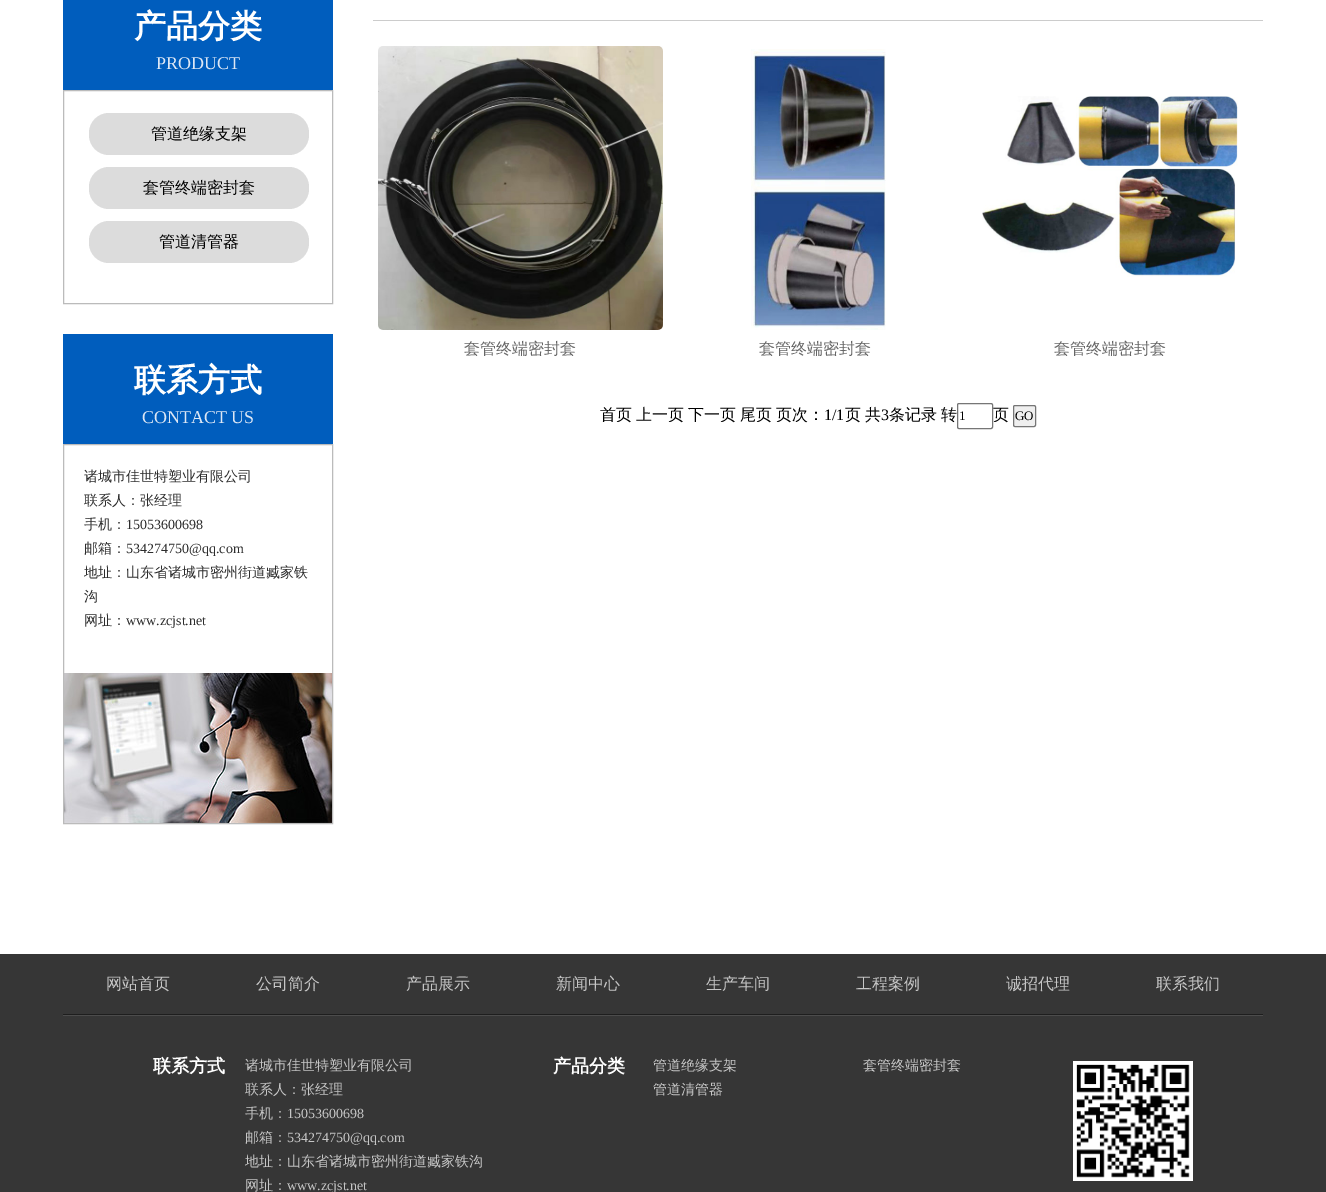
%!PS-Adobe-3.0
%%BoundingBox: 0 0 1326 1192
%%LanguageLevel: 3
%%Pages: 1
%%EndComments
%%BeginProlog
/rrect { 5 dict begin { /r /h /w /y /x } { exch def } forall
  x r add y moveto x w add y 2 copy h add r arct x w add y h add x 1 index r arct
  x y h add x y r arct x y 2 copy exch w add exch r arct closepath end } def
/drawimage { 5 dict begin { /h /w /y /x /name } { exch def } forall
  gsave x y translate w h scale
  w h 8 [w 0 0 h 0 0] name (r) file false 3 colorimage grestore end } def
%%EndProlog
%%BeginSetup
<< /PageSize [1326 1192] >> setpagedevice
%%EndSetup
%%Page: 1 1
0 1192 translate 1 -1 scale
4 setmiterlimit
1 setgray
0 0 1326 1192 rectfill
0 0.365 0.741 setrgbcolor
63 0 270 90 rectfill
0.733 setgray
63.5 90.5 269 213 rectstroke
0.863 setgray
89 113 220 42 20 rrect fill
89 167 220 42 20 rrect fill
89 221 220 42 20 rrect fill
0 0.365 0.741 setrgbcolor
63 334 270 110 rectfill
(images/1.raw) 64 673 268 150 drawimage
0.733 setgray
63.5 444.5 269 379 rectstroke
0.8 setgray
373 20 890 1 rectfill
(images/2.raw) 378 46 285 284 drawimage
(images/3.raw) 751 49 135 281 drawimage
(images/4.raw) 982 96 256 181 drawimage
0.463 setgray
957.5 403.5 35 25 1.5 rrect stroke
0.937 setgray
1013.5 405.5 22 21 1.5 rrect gsave fill grestore
0.463 setgray
stroke
0.212 setgray
0 954 1326 238 rectfill
0.118 setgray
63 1014 1200 1 rectfill
0.298 setgray
63 1015 1200 1 rectfill
(images/5.raw) 1073 1061 120 120 drawimage
/WenQuanYiZenHei-Bold [32 0 0 -32 0 0] selectfont
1 setgray
134 37 moveto (产品分类) show
/LiberationSerif-Regular [18 0 0 -18 0 0] selectfont
0.867 0.906 0.961 setrgbcolor
156 69 moveto (PRODUCT) show
/WenQuanYiZenHei-Medium [16 0 0 -16 0 0] selectfont
0 setgray
151 139 moveto (管道绝缘支架) show
143 193 moveto (套管终端密封套) show
159 247 moveto (管道清管器) show
/WenQuanYiZenHei-Bold [32 0 0 -32 0 0] selectfont
1 setgray
134 391 moveto (联系方式) show
/LiberationSerif-Regular [18 0 0 -18 0 0] selectfont
0.867 0.906 0.961 setrgbcolor
142 423 moveto (CONTACT US) show
/WenQuanYiZenHei-Medium [14 0 0 -14 0 0] selectfont
0.176 setgray
84 481 moveto (诸城市佳世特塑业有限公司) show
84 505 moveto (联系人：张经理) show
84 529 moveto (手机：) show
/LiberationSerif-Regular [14 0 0 -14 0 0] selectfont
126 529 moveto (15053600698) show
/WenQuanYiZenHei-Medium [14 0 0 -14 0 0] selectfont
84 553 moveto (邮箱：) show
/LiberationSerif-Regular [14 0 0 -14 0 0] selectfont
126 553 moveto (534274750@qq.com) show
/WenQuanYiZenHei-Medium [14 0 0 -14 0 0] selectfont
84 577 moveto (地址：山东省诸城市密州街道臧家铁) show
84 601 moveto (沟) show
84 625 moveto (网址：) show
/LiberationSerif-Regular [14 0 0 -14 0 0] selectfont
126 625 moveto (www.zcjst.net) show
/WenQuanYiZenHei-Medium [16 0 0 -16 0 0] selectfont
0.4 setgray
464 354 moveto (套管终端密封套) show
759 354 moveto (套管终端密封套) show
1054 354 moveto (套管终端密封套) show
0 setgray
600 420 moveto (首页) show
636 420 moveto (上一页) show
688 420 moveto (下一页) show
740 420 moveto (尾页) show
776 420 moveto (页次：) show
/LiberationSerif-Regular [16 0 0 -16 0 0] selectfont
824 420 moveto (1/1) show
/WenQuanYiZenHei-Medium [16 0 0 -16 0 0] selectfont
845 420 moveto (页) show
865 420 moveto (共) show
/LiberationSerif-Regular [16 0 0 -16 0 0] selectfont
881 420 moveto (3) show
/WenQuanYiZenHei-Medium [16 0 0 -16 0 0] selectfont
889 420 moveto (条记录) show
941 420 moveto (转) show
/LiberationSerif-Regular [13 0 0 -13 0 0] selectfont
959 420 moveto (1) show
/WenQuanYiZenHei-Medium [16 0 0 -16 0 0] selectfont
993 420 moveto (页) show
/LiberationSerif-Regular [13 0 0 -13 0 0] selectfont
1015 420 moveto (GO) show
/WenQuanYiZenHei-Medium [16 0 0 -16 0 0] selectfont
0.776 setgray
106 989 moveto (网站首页) show
256 989 moveto (公司简介) show
406 989 moveto (产品展示) show
556 989 moveto (新闻中心) show
706 989 moveto (生产车间) show
856 989 moveto (工程案例) show
1006 989 moveto (诚招代理) show
1156 989 moveto (联系我们) show
/WenQuanYiZenHei-Bold [18 0 0 -18 0 0] selectfont
1 setgray
153 1072 moveto (联系方式) show
/WenQuanYiZenHei-Medium [14 0 0 -14 0 0] selectfont
0.776 setgray
245 1070 moveto (诸城市佳世特塑业有限公司) show
245 1094 moveto (联系人：张经理) show
245 1118 moveto (手机：) show
/LiberationSerif-Regular [14 0 0 -14 0 0] selectfont
287 1118 moveto (15053600698) show
/WenQuanYiZenHei-Medium [14 0 0 -14 0 0] selectfont
245 1142 moveto (邮箱：) show
/LiberationSerif-Regular [14 0 0 -14 0 0] selectfont
287 1142 moveto (534274750@qq.com) show
/WenQuanYiZenHei-Medium [14 0 0 -14 0 0] selectfont
245 1166 moveto (地址：山东省诸城市密州街道臧家铁沟) show
245 1190 moveto (网址：) show
/LiberationSerif-Regular [14 0 0 -14 0 0] selectfont
287 1190 moveto (www.zcjst.net) show
/WenQuanYiZenHei-Bold [18 0 0 -18 0 0] selectfont
1 setgray
553 1072 moveto (产品分类) show
/WenQuanYiZenHei-Medium [14 0 0 -14 0 0] selectfont
0.776 setgray
653 1070 moveto (管道绝缘支架) show
863 1070 moveto (套管终端密封套) show
653 1094 moveto (管道清管器) show
showpage
%%EOF
